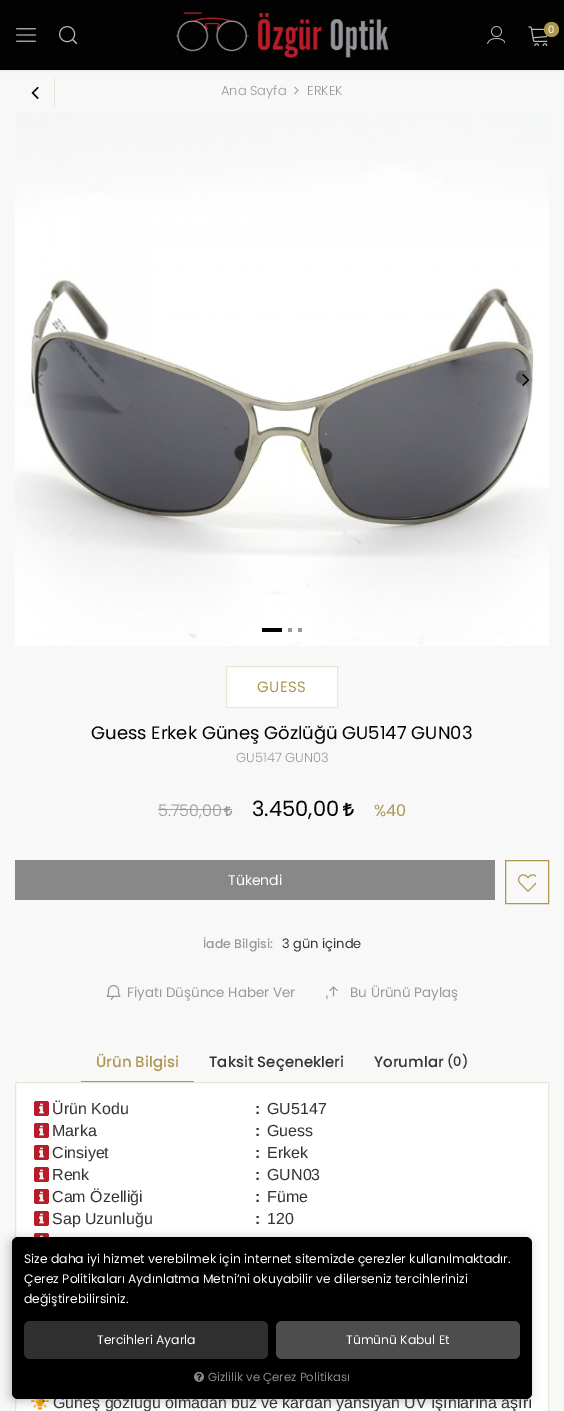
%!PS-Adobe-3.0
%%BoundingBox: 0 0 564 1411
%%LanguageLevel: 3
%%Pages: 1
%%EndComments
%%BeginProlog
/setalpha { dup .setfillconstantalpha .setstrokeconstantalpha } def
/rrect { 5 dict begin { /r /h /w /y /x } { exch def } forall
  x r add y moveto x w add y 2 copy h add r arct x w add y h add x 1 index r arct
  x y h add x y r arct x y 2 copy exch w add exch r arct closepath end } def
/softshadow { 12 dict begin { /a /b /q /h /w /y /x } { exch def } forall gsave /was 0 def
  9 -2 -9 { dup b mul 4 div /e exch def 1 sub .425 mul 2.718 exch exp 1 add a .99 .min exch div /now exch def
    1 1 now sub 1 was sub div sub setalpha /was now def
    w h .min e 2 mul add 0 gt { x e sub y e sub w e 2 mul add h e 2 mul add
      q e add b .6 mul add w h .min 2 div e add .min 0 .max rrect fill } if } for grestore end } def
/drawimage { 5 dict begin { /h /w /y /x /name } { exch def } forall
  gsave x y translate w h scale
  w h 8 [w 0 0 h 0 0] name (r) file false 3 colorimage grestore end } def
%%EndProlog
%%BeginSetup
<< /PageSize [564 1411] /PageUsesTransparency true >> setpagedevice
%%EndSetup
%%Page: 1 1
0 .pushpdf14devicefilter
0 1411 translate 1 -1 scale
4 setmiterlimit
0.973 setgray
0 0 564 1411 rectfill
0.008 setgray
0 0 564 70 0 1.5 0.1 softshadow
0 0 564 70 rectfill
(images/1.raw) 16 28 20 14 drawimage
(images/2.raw) 175 12 214 46 drawimage
(images/3.raw) 59 26 18 18 drawimage
(images/4.raw) 487 26 18 18 drawimage
(images/5.raw) 528 26 20 20 drawimage
0.678 0.588 0.314 setrgbcolor
newpath 551.5 29.5 7.5 0 360 arc closepath fill
0.922 0.902 0.847 setrgbcolor
54 77 1 30 rectfill
(images/6.raw) 31 86 8 13 drawimage
(images/7.raw) 294 86 5 9 drawimage
(images/8.raw) 15 112 534 534 drawimage
(images/9.raw) 36 374 7 12 drawimage
(images/10.raw) 522 373 8 13 drawimage
0.008 setgray
262 628 20 4 rectfill
0.6 setgray
288 628 4 4 rectfill
298 628 4 4 rectfill
1 setgray
newpath 226.5 666.5 moveto 337.5 666.5 lineto 337.5 707.5 lineto 226.5 707.5 lineto closepath gsave fill grestore
0.922 0.902 0.847 setrgbcolor
stroke
(images/11.raw) 224 805 9 11 drawimage
(images/12.raw) 343 802 11 14 drawimage
0.533 setgray
15 860 480 40 rectfill
0.678 0.588 0.314 setrgbcolor
505.5 860.5 43 43 rectstroke
(images/13.raw) 518 874 18 18 drawimage
(images/14.raw) 106 985 15 15 drawimage
(images/15.raw) 326 986 12 13 drawimage
81 1081 113 1 rectfill
1 setgray
newpath 15.5 1082.5 moveto 548.5 1082.5 lineto 548.5 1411.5 lineto 15.5 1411.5 lineto closepath gsave fill grestore
0.922 0.902 0.847 setrgbcolor
stroke
(images/16.raw) 34 1101 15 15 drawimage
(images/16.raw) 34 1123 15 15 drawimage
(images/16.raw) 34 1145 15 15 drawimage
(images/16.raw) 34 1167 15 15 drawimage
(images/16.raw) 34 1189 15 15 drawimage
(images/16.raw) 34 1211 15 15 drawimage
(images/17.raw) 34 1233 15 4 drawimage
(images/18.raw) 31 1399 18 11 drawimage
0 setgray
10 1239 520 162 6 5 0.25 softshadow
/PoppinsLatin-Regular [10 0 0 -10 0 0] selectfont
1 setgray
548 33 moveto (0) show
/PoppinsLatin-Light [13 0 0 -13 0 0] selectfont
0.6 setgray
221 95 moveto (Ana Sayfa) show
307 95 moveto (ERKEK) show
/PoppinsLatin-Regular [15 0 0 -15 0 0] selectfont
0.678 0.588 0.314 setrgbcolor
257 692 moveto 0.5 0 (GUESS) ashow
/PoppinsLatin-Regular [18 0 0 -18 0 0] selectfont
0.008 setgray
91 739 moveto (Guess Erkek Güneş Gözlüğü GU5147 GUN03) show
/PoppinsLatin-Light [13 0 0 -13 0 0] selectfont
0.6 setgray
236 762 moveto (GU5147 GUN03) show
/PoppinsLatin-Light [16 0 0 -16 0 0] selectfont
158 816 moveto (5.750,00) show
0.8 setalpha
0.557 setgray
158 809 74 1 rectfill
/PoppinsLatin-Regular [21 0 0 -21 0 0] selectfont
1 setalpha
0.008 setgray
252 816 moveto (3.450,00) show
/PoppinsLatin-Regular [16 0 0 -16 0 0] selectfont
0.678 0.588 0.314 setrgbcolor
374 816 moveto (%40) show
/PoppinsLatin-Regular [14 0 0 -14 0 0] selectfont
1 setgray
228 885 moveto (Tükendi) show
/PoppinsLatin-Medium [12.5 0 0 -12.5 0 0] selectfont
0.6 setgray
203 948 moveto (İade Bilgisi:) show
/PoppinsLatin-Regular [13 0 0 -13 0 0] selectfont
0.2 setgray
282 948 moveto (3 gün içinde) show
/PoppinsLatin-Regular [13.5 0 0 -13.5 0 0] selectfont
0.6 setgray
127 997 moveto (Fiyatı Düşünce Haber Ver) show
350 997 moveto (Bu Ürünü Paylaş) show
/PoppinsLatin-Medium [15 0 0 -15 0 0] selectfont
0.678 0.588 0.314 setrgbcolor
96 1067 moveto (Ürün Bilgisi) show
0.2 setgray
209 1067 moveto (Taksit Seçenekleri) show
374 1067 moveto (Yorumlar) show
/PoppinsLatin-Medium [13 0 0 -13 0 0] selectfont
447 1066 moveto (\(0\)) show
/LiberationSans-Regular [16 0 0 -16 0 0] selectfont
52 1114 moveto (Ürün Kodu) show
/LiberationSans-Bold [16 0 0 -16 0 0] selectfont
255 1114 moveto (:) show
/LiberationSans-Regular [16 0 0 -16 0 0] selectfont
267 1114 moveto (GU5147) show
52 1136 moveto (Marka) show
/LiberationSans-Bold [16 0 0 -16 0 0] selectfont
255 1136 moveto (:) show
/LiberationSans-Regular [16 0 0 -16 0 0] selectfont
267 1136 moveto (Guess) show
52 1158 moveto (Cinsiyet) show
/LiberationSans-Bold [16 0 0 -16 0 0] selectfont
255 1158 moveto (:) show
/LiberationSans-Regular [16 0 0 -16 0 0] selectfont
267 1158 moveto (Erkek) show
52 1180 moveto (Renk) show
/LiberationSans-Bold [16 0 0 -16 0 0] selectfont
255 1180 moveto (:) show
/LiberationSans-Regular [16 0 0 -16 0 0] selectfont
267 1180 moveto (GUN03) show
52 1202 moveto (Cam Özelliği) show
/LiberationSans-Bold [16 0 0 -16 0 0] selectfont
255 1202 moveto (:) show
/LiberationSans-Regular [16 0 0 -16 0 0] selectfont
267 1202 moveto (Füme) show
52 1224 moveto (Sap Uzunluğu) show
/LiberationSans-Bold [16 0 0 -16 0 0] selectfont
255 1224 moveto (:) show
/LiberationSans-Regular [16 0 0 -16 0 0] selectfont
267 1224 moveto (120) show
53 1408 moveto (Güneş gözlüğü olmadan buz ve kardan yansıyan UV ışınlarına aşırı) show
0 setgray
12 1237 520 162 6 rrect fill
/PoppinsLatin-Regular [12.35 0 0 -12.35 0 0] selectfont
1 setgray
24 1263 moveto (Size daha iyi hizmet verebilmek için internet sitemizde çerezler kullanılmaktadır.) show
24 1283 moveto (Çerez Politikaları Aydınlatma Metni’ni okuyabilir ve dilerseniz tercihlerinizi) show
24 1303 moveto (değiştirebilirsiniz.) show
0.184 setgray
24 1321 244 38 6 rrect fill
1 setgray
97 1344 moveto (Tercihleri Ayarla) show
0.302 setgray
276 1321 244 38 6 rrect fill
1 setgray
346 1344 moveto (Tümünü Kabul Et) show
(images/19.raw) 194 1371 10 11 drawimage
/PoppinsLatin-Regular [11.75 0 0 -11.75 0 0] selectfont
0.533 setgray
208 1381 moveto (Gizlilik ve Çerez Politikası) show
.poppdf14devicefilter showpage
%%EOF
